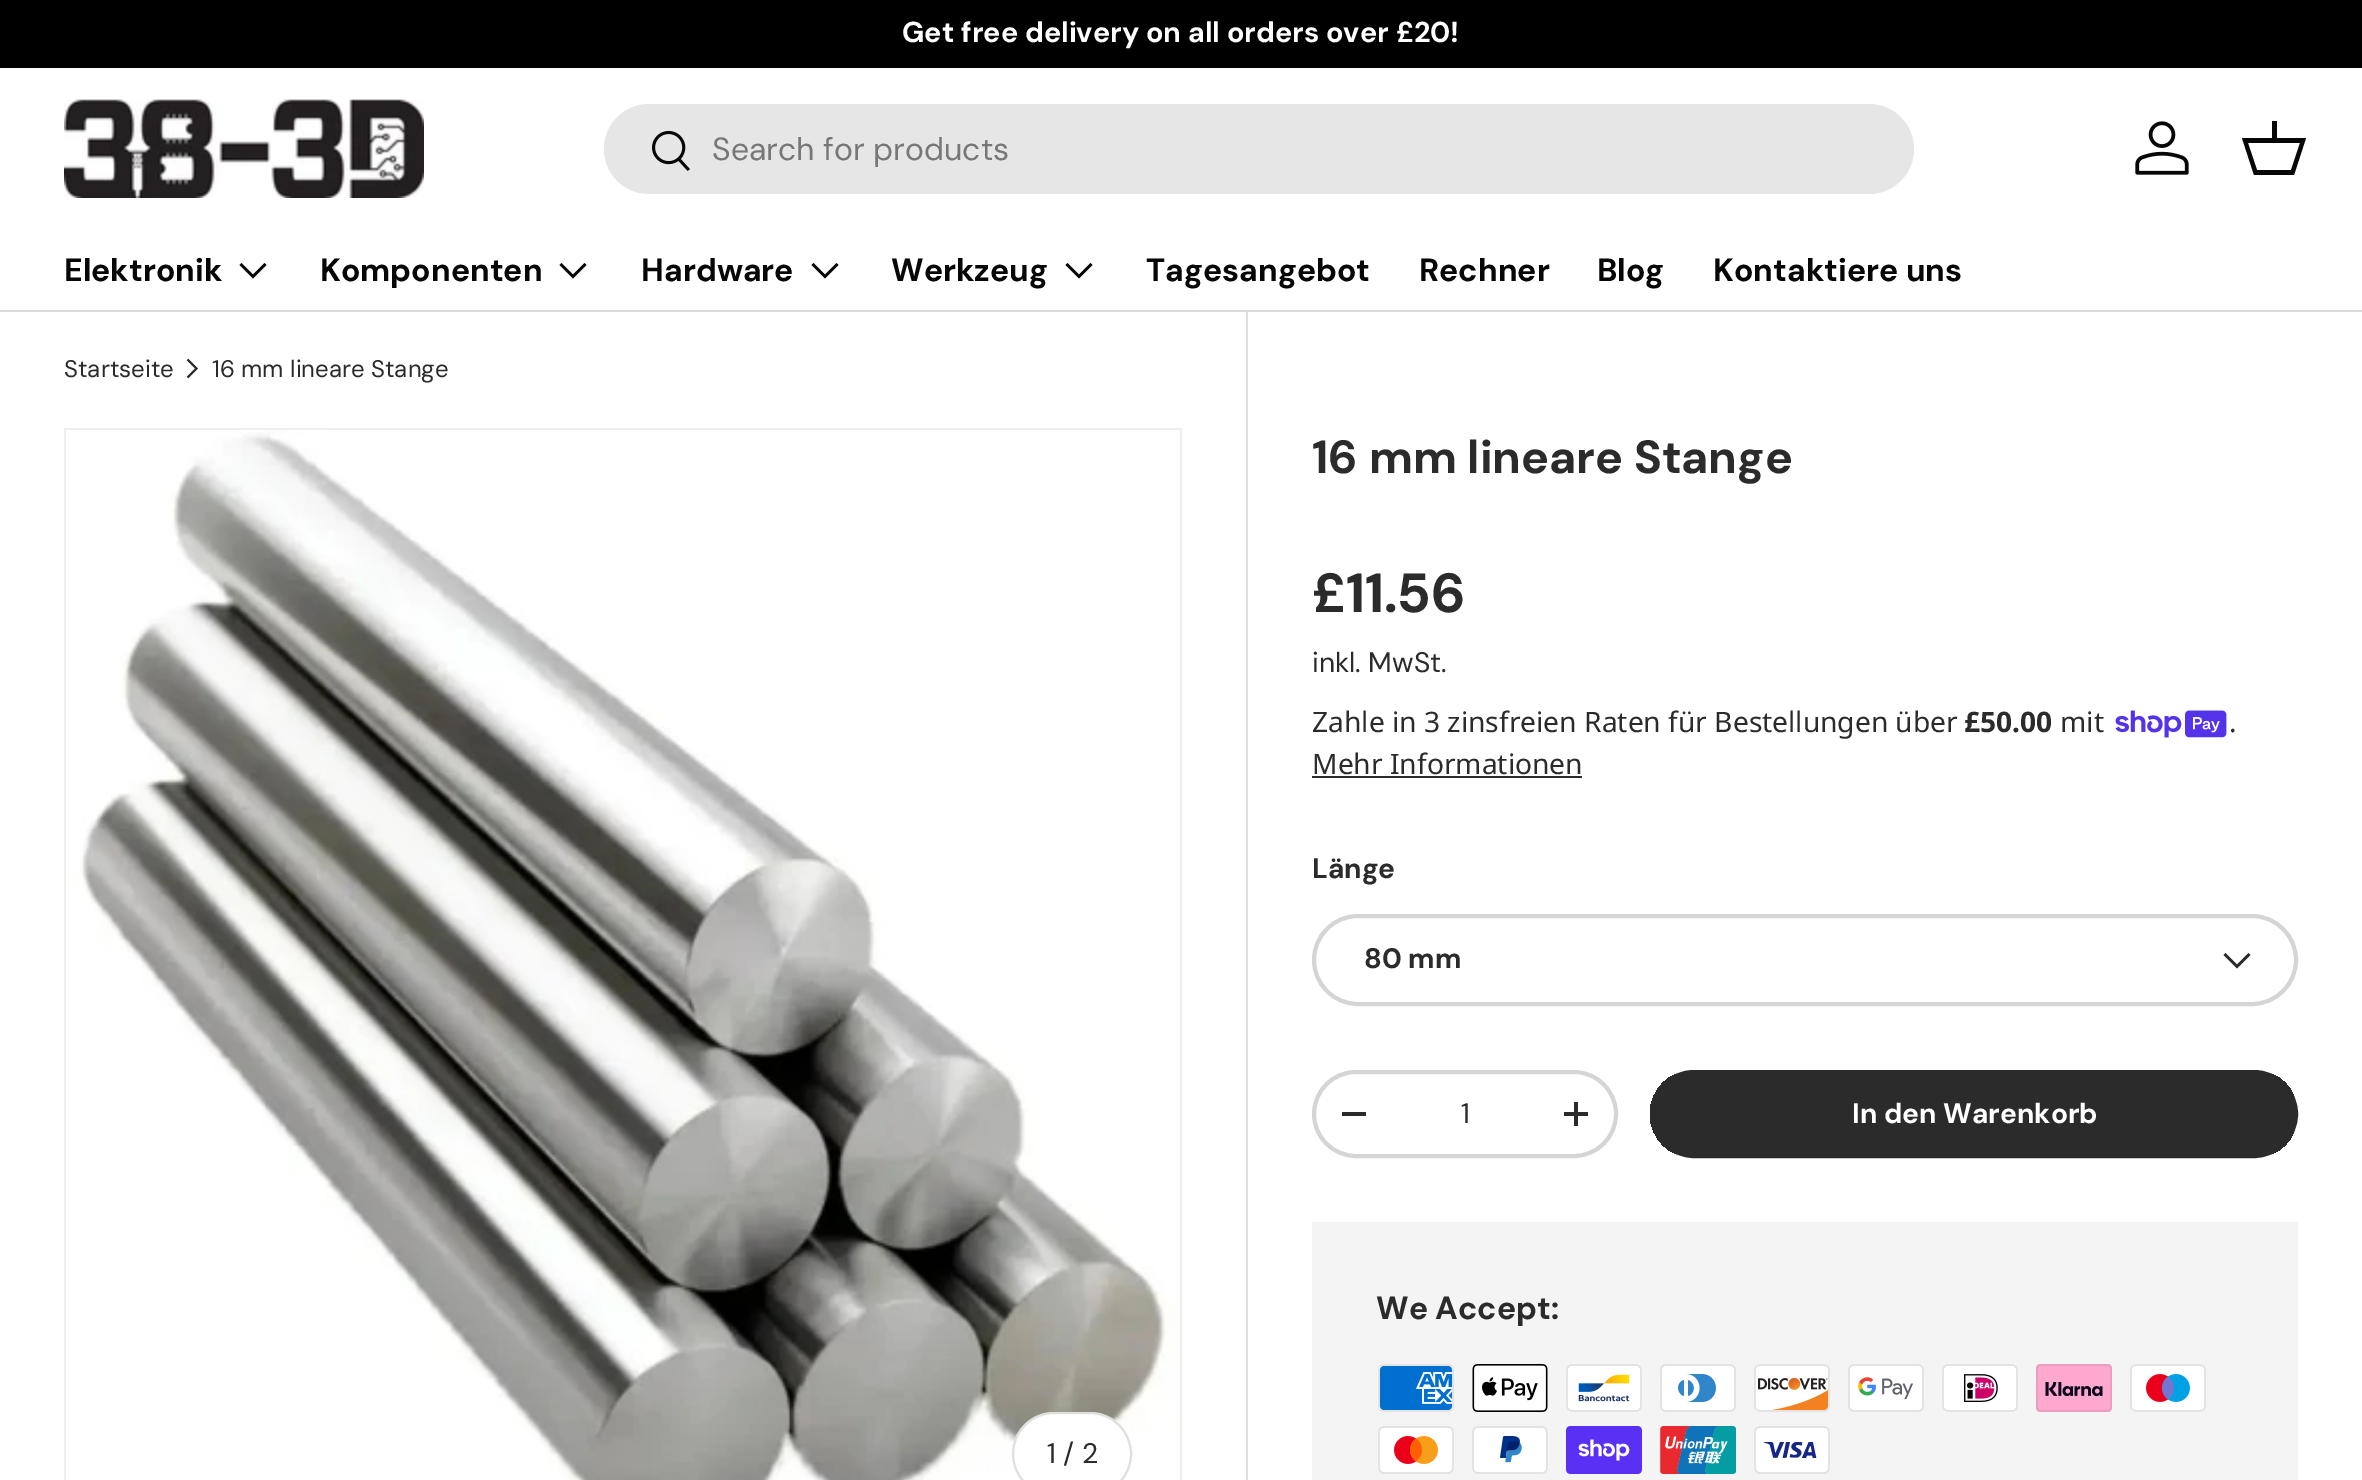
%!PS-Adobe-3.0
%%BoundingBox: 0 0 2362 1480
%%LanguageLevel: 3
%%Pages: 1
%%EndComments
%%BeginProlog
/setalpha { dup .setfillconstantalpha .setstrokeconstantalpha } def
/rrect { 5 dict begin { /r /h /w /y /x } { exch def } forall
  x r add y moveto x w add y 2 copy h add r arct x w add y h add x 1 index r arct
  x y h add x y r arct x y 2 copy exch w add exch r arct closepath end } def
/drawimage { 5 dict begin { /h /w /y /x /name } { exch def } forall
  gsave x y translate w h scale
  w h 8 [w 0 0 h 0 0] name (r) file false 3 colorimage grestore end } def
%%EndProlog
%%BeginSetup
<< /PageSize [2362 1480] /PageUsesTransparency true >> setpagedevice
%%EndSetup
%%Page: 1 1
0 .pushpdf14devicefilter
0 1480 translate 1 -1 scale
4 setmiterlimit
1 setgray
0 0 2362 1480 rectfill
0 setgray
0 0 2362 68 rectfill
0.855 setgray
0 310 2362 2 rectfill
(images/1.raw) 64 99 360 99 drawimage
0.902 setgray
604 104 1310 90 45 rrect fill
(images/2.raw) 652 130 38 41 drawimage
(images/3.raw) 2135 121 54 54 drawimage
0.027 setgray
newpath 2272 138 moveto 2272 121 lineto 2277 121 lineto 2277 138 lineto 2306 138 lineto 2294 175 lineto 2254 175 lineto 2242 138 lineto closepath 2248 143 moveto 2257 170 lineto 2291 170 lineto 2300 143 lineto closepath fill
2.5 setlinewidth
newpath 265.5 264 moveto 253 276.5 lineto 240.5 264 lineto stroke
newpath 585.5 264 moveto 573 276.5 lineto 560.5 264 lineto stroke
newpath 837.5 264 moveto 825 276.5 lineto 812.5 264 lineto stroke
newpath 1091.5 264 moveto 1079 276.5 lineto 1066.5 264 lineto stroke
0.165 0.169 0.165 setrgbcolor
1.8 setlinewidth
newpath 187.5 359.5 moveto 196.5 368.5 lineto 187.5 377.5 lineto stroke
0.875 setgray
1246 312 2 1168 rectfill
(images/4.raw) 2115 710 112 28 drawimage
0.165 0.169 0.165 setrgbcolor
1312 776 270 2 rectfill
0.831 0.835 0.831 setrgbcolor
4 setlinewidth
1314 916 982 88 44 rrect stroke
0.165 0.169 0.165 setrgbcolor
2.5 setlinewidth
newpath 2249.5 954 moveto 2237 966.5 lineto 2224.5 954 lineto stroke
0.831 0.835 0.831 setrgbcolor
4 setlinewidth
1314 1072 302 84 42 rrect stroke
0.165 0.169 0.165 setrgbcolor
1342 1112 24 4 rectfill
1564 1112 24 4 rectfill
1574 1102 4 24 rectfill
gsave
1650 1070 648 88 44 rrect clip newpath
gsave newpath 1650 1074 moveto 2294 1074 lineto 2294 1154 lineto 1650 1154 lineto closepath clip newpath
<< /ShadingType 2 /ColorSpace /DeviceRGB /Coords [421 886 2247 1342] /Extend [true true] /Function << /FunctionType 3 /Domain [0 1] /Functions [<< /FunctionType 2 /Domain [0 1] /C0 [0.322 0.325 0.322] /C1 [0.322 0.325 0.322] /N 1 >> << /FunctionType 2 /Domain [0 1] /C0 [0.165 0.169 0.165] /C1 [0.165 0.169 0.165] /N 1 >>] /Bounds [0.6] /Encode [0 1 0 1] >> >> shfill grestore
grestore
1652 1072 644 84 42 rrect stroke
0.957 setgray
1312 1222 986 258 rectfill
(images/5.raw) 1378 1364 76 48 drawimage
(images/6.raw) 1472 1364 76 48 drawimage
(images/7.raw) 1566 1364 76 48 drawimage
(images/8.raw) 1660 1364 76 48 drawimage
(images/9.raw) 1754 1364 76 48 drawimage
(images/10.raw) 1848 1364 76 48 drawimage
(images/11.raw) 1942 1364 76 48 drawimage
(images/12.raw) 2036 1364 76 48 drawimage
(images/13.raw) 2130 1364 76 48 drawimage
(images/14.raw) 1378 1426 76 48 drawimage
(images/15.raw) 1472 1426 76 48 drawimage
(images/16.raw) 1566 1426 76 48 drawimage
(images/17.raw) 1660 1426 76 48 drawimage
(images/18.raw) 1754 1426 76 48 drawimage
0.933 setgray
2 setlinewidth
65 429 1116 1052 rectstroke
(images/19.raw) 66 430 1114 1050 drawimage
1 setgray
1012 1412 120 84 42 rrect fill
0.15 setalpha
0.165 0.169 0.165 setrgbcolor
1013 1413 118 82 41 rrect stroke
/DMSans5-Bold [28.75 0 0 -28.75 0 0] selectfont
1 setalpha
1 setgray
902 42 moveto (Get free delivery on all orders over £20!) show
/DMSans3-Regular [32 0 0 -32 0 0] selectfont
0.467 setgray
712 160 moveto (Search for products) show
/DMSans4-Bold [32 0 0 -32 0 0] selectfont
0.027 setgray
64 281 moveto (Elektronik) show
320 281 moveto (Komponenten) show
641 281 moveto (Hardware) show
891 281 moveto (Werkzeug) show
1146 281 moveto (Tagesangebot) show
1419 281 moveto (Rechner) show
1597 281 moveto (Blog) show
1713 281 moveto (Kontaktiere uns) show
/DMSans-Regular [24 0 0 -24 0 0] selectfont
0.165 0.169 0.165 setrgbcolor
64 377 moveto (Startseite) show
212 377 moveto (16 mm lineare Stange) show
/DMSans-Bold [46.5 0 0 -46.5 0 0] selectfont
1312 473 moveto (16 mm lineare Stange) show
/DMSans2-Bold [55 0 0 -55 0 0] selectfont
1312 612 moveto (£11.56) show
/DMSans2-Regular [28.2 0 0 -28.2 0 0] selectfont
1312 672 moveto (inkl. MwSt.) show
/NotoSans-Regular [28.2 0 0 -28.2 0 0] selectfont
1312 732 moveto (Zahle in 3 zinsfreien Raten für Bestellungen über) show
/NotoSans-Bold [28.2 0 0 -28.2 0 0] selectfont
1964 732 moveto (£50.00) show
/NotoSans-Regular [28.2 0 0 -28.2 0 0] selectfont
2060 732 moveto (mit) show
2229 732 moveto (.) show
1312 774 moveto (Mehr Informationen) show
/DMSans3-Bold [28.2 0 0 -28.2 0 0] selectfont
1312 878 moveto (Länge) show
1364 968 moveto (80 mm) show
/DMSans2-Regular [28.2 0 0 -28.2 0 0] selectfont
1461 1123 moveto (1) show
/DMSans3-Bold [28.2 0 0 -28.2 0 0] selectfont
1 setgray
1852 1123 moveto (In den Warenkorb) show
/DMSans4-Bold [32 0 0 -32 0 0] selectfont
0.165 0.169 0.165 setrgbcolor
1376 1319 moveto (We Accept:) show
/DMSans2-Regular [28.2 0 0 -28.2 0 0] selectfont
1047 1463 moveto (1 / 2) show
.poppdf14devicefilter showpage
%%EOF
